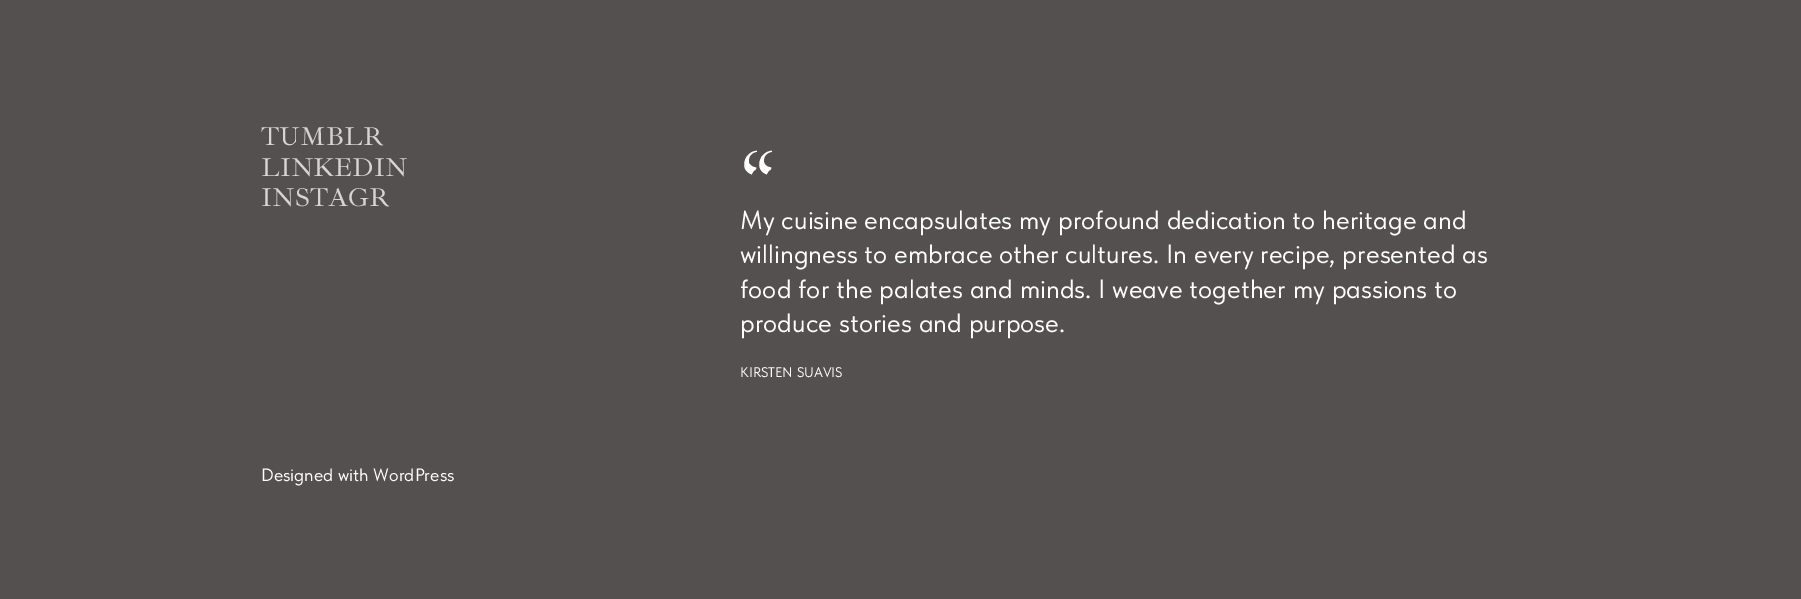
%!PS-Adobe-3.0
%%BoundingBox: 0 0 1801 599
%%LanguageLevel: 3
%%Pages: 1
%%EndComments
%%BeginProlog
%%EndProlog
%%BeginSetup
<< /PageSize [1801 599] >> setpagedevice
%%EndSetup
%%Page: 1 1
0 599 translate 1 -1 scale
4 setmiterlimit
0.329 0.314 0.31 setrgbcolor
0 0 1801 599 rectfill
/IbarraRealNova-Regular [26.4 0 0 -26.4 0 0] selectfont
0.835 0.835 0.827 setrgbcolor
261 145 moveto (TUMBLR) show
261 176 moveto (LINKEDIN) show
261 206 moveto (INSTAGR) show
/IbarraRealNova-Regular [80 0 0 -80 0 0] selectfont
0.992 0.992 0.984 setrgbcolor
740 205 moveto (“) show
/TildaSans-Regular [26.4 0 0 -26.4 0 0] selectfont
740 229 moveto (My cuisine encapsulates my profound dedication to heritage and) show
740 263 moveto (willingness to embrace other cultures. In every recipe, presented as) show
740 298 moveto (food for the palates and minds. I weave together my passions to) show
740 332 moveto (produce stories and purpose.) show
/TildaSans-Regular [14 0 0 -14 0 0] selectfont
740 377 moveto (KIRSTEN SUAVIS) show
/TildaSans-Regular [18 0 0 -18 0 0] selectfont
261 481 moveto (Designed with WordPress) show
showpage
%%EOF
